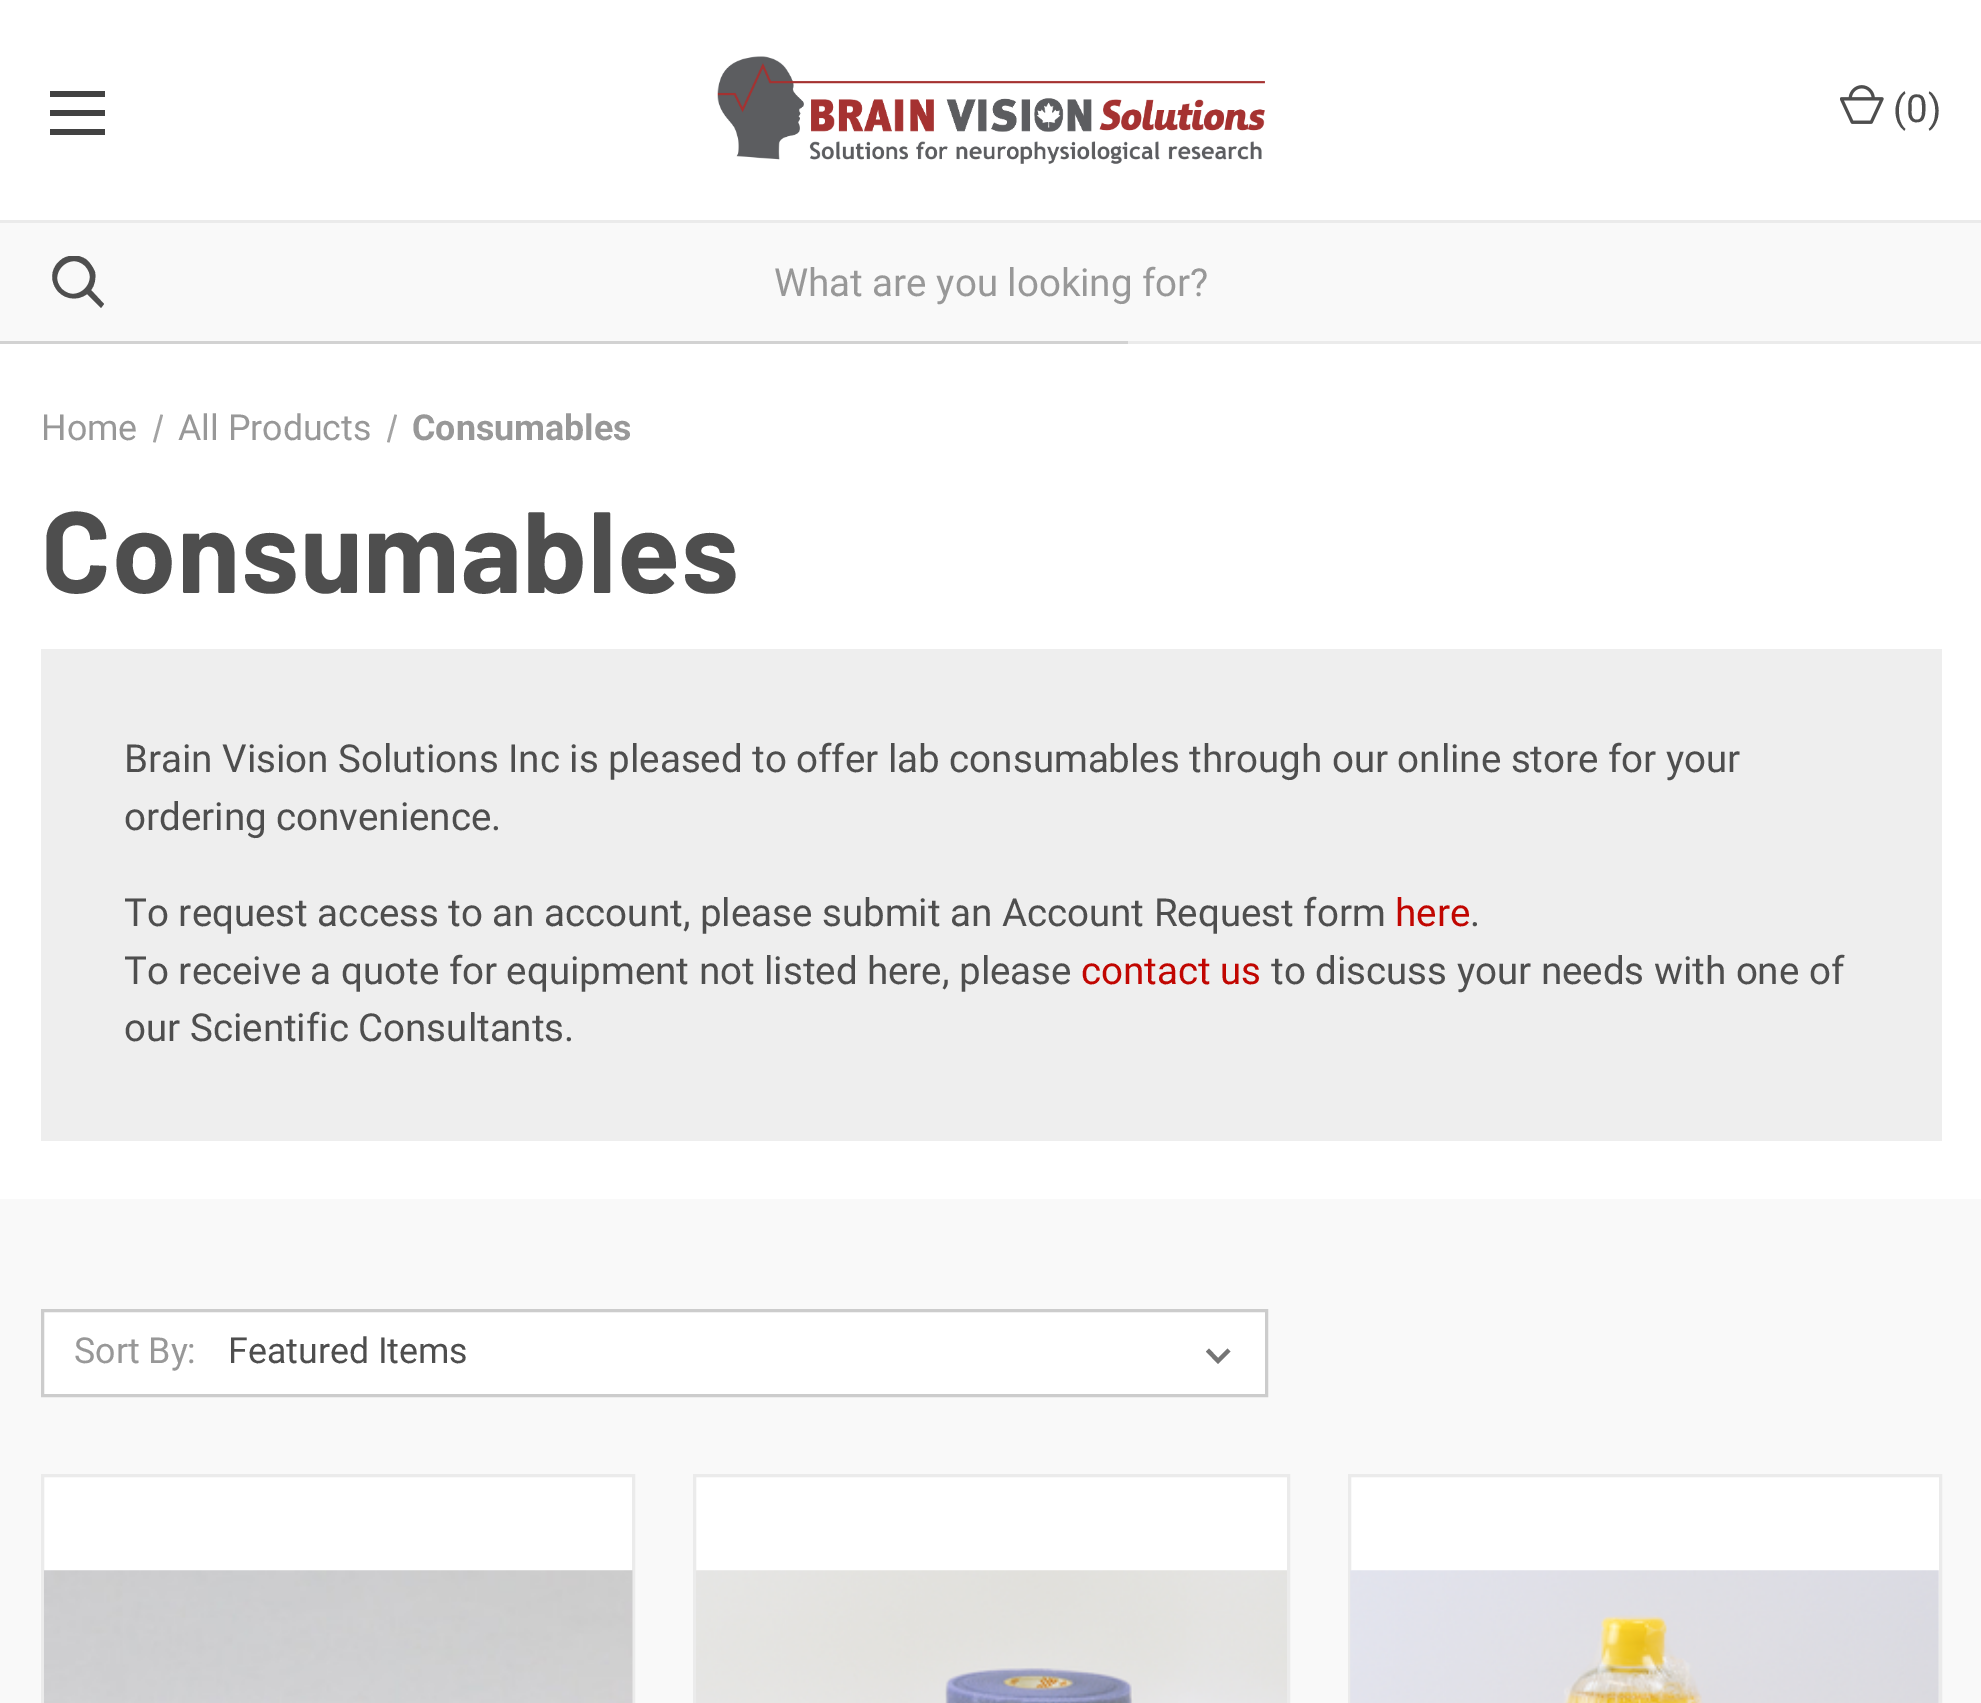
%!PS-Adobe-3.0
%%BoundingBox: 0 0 1981 1703
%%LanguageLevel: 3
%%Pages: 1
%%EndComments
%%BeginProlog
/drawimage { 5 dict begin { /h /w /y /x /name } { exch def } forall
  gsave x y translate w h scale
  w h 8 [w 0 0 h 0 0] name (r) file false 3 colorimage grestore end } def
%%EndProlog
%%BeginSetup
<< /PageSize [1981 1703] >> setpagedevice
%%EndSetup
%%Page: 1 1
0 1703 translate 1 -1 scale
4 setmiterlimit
1 setgray
0 0 1981 1703 rectfill
0.922 setgray
1128 341 853 3 rectfill
0.259 setgray
50 110 55 6 rectfill
50 91 55 6 rectfill
50 129 55 6 rectfill
(images/1.raw) 717 56 548 108 drawimage
(images/2.raw) 1840 85 44 39 drawimage
0.976 setgray
0 223 1981 118 rectfill
gsave
52 256 53 52 rectclip
0.306 setgray
newpath 104 304 moveto 101 308 lineto 87 294 lineto 77 302 61 299 55 287 curveto 44 267 68 246 87 260 curveto 90 263 93 267 95 272 curveto 96 278 95 285 91 290 curveto closepath 62 289 moveto 77 304 100 281 85 266 curveto 70 251 47 274 62 289 curveto closepath eofill
grestore
0.922 setgray
0 220 1981 3 rectfill
0.824 setgray
0 341 1128 3 rectfill
0.639 setgray
newpath 160.5 414.5 moveto 163 415 lineto 155.5 442.5 lineto 153 442 lineto closepath fill
newpath 394.5 414.5 moveto 397 415 lineto 389.5 442.5 lineto 387 442 lineto closepath fill
0.933 setgray
41 649 1901 492 rectfill
0.976 setgray
0 1199 1981 504 rectfill
1 setgray
newpath 42.5 1310.5 moveto 1266.5 1310.5 lineto 1266.5 1395.5 lineto 42.5 1395.5 lineto closepath gsave fill grestore
0.8 setgray
3 setlinewidth
stroke
0.459 setgray
newpath 1227.5 1348.5 moveto 1218 1358 lineto 1209 1348.5 lineto 1206 1351.5 lineto 1218 1364 lineto 1230.5 1351.5 lineto closepath fill
1 setgray
44 1477 588 94 rectfill
0.922 setgray
42.5 1475.5 591 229 rectstroke
(images/3.raw) 44 1570 589 133 drawimage
1 setgray
696 1477 591 94 rectfill
0.922 setgray
694.5 1475.5 594 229 rectstroke
(images/4.raw) 696 1570 591 133 drawimage
1 setgray
newpath 1349.5 1475.5 moveto 1940.5 1475.5 lineto 1940.5 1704.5 lineto 1349.5 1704.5 lineto closepath gsave fill grestore
0.922 setgray
stroke
(images/5.raw) 1350 1570 589 133 drawimage
/Roboto-Regular [38.5 0 0 -38.5 0 0] selectfont
0.306 setgray
1893 122 moveto (\(0\)) show
0.596 setgray
774 296 moveto (What are you looking for?) show
/Roboto-Regular [35.75 0 0 -35.75 0 0] selectfont
41 440 moveto (Home) show
178 440 moveto (All Products) show
/Roboto-Bold [35.75 0 0 -35.75 0 0] selectfont
412 440 moveto (Consumables) show
/Barlow-Bold [115.5 0 0 -115.5 0 0] selectfont
0.306 setgray
41 593 moveto 0.75 0 (Consumables) ashow
/Roboto-Regular [38.5 0 0 -38.5 0 0] selectfont
124 772 moveto (Brain Vision Solutions Inc is pleased to offer lab consumables through our online store for your) show
124 830 moveto (ordering convenience.) show
124 926 moveto (To request access to an account, please submit an Account Request form) show
0.757 0.024 0.004 setrgbcolor
1395 926 moveto (here) show
0.306 setgray
1470 926 moveto (.) show
124 984 moveto (To receive a quote for equipment not listed here, please) show
0.757 0.024 0.004 setrgbcolor
1081 984 moveto (contact us) show
0.306 setgray
1271 984 moveto (to discuss your needs with one of) show
124 1041 moveto (our Scientific Consultants.) show
/Roboto-Regular [35.75 0 0 -35.75 0 0] selectfont
0.596 setgray
74 1363 moveto (Sort By:) show
0.306 setgray
228 1363 moveto (Featured Items) show
showpage
%%EOF
